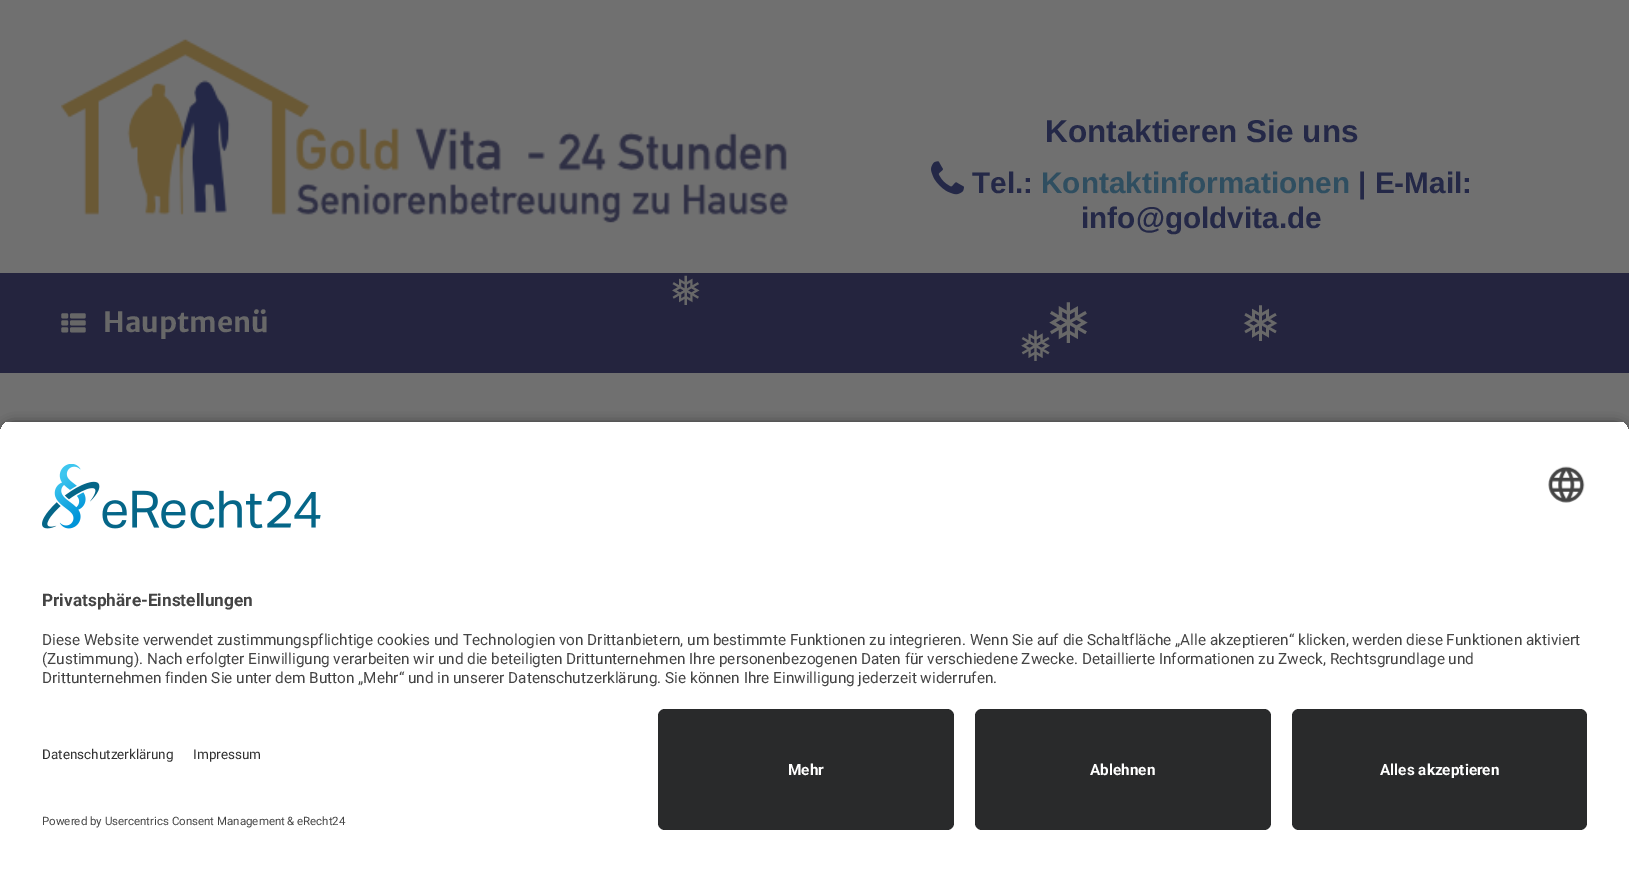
%!PS-Adobe-3.0
%%BoundingBox: 0 0 1629 871
%%LanguageLevel: 3
%%Pages: 1
%%EndComments
%%BeginProlog
/setalpha { dup .setfillconstantalpha .setstrokeconstantalpha } def
/rrect { 5 dict begin { /r /h /w /y /x } { exch def } forall
  x r add y moveto x w add y 2 copy h add r arct x w add y h add x 1 index r arct
  x y h add x y r arct x y 2 copy exch w add exch r arct closepath end } def
/softshadow { 12 dict begin { /a /b /q /h /w /y /x } { exch def } forall gsave /was 0 def
  9 -2 -9 { dup b mul 4 div /e exch def 1 sub .425 mul 2.718 exch exp 1 add a .99 .min exch div /now exch def
    1 1 now sub 1 was sub div sub setalpha /was now def
    w h .min e 2 mul add 0 gt { x e sub y e sub w e 2 mul add h e 2 mul add
      q e add b .6 mul add w h .min 2 div e add .min 0 .max rrect fill } if } for grestore end } def
/drawimage { 5 dict begin { /h /w /y /x /name } { exch def } forall
  gsave x y translate w h scale
  w h 8 [w 0 0 h 0 0] name (r) file false 3 colorimage grestore end } def
%%EndProlog
%%BeginSetup
<< /PageSize [1629 871] /PageUsesTransparency true >> setpagedevice
%%EndSetup
%%Page: 1 1
0 .pushpdf14devicefilter
0 871 translate 1 -1 scale
4 setmiterlimit
0.439 setgray
0 0 1629 871 rectfill
(images/1.raw) 61 38 728 185 drawimage
(images/2.raw) 931 161 33 34 drawimage
0.141 0.141 0.243 setrgbcolor
0 273 1629 100 rectfill
(images/3.raw) 61 313 25 20 drawimage
0 setgray
0 425 1629 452 14 6 0.8 softshadow
gsave
newpath 14 420 moveto 1615 420 lineto 1622.5 420 1629 426.5 1629 434 curveto 1629 695 lineto 0 695 lineto 0 434 lineto 0 426.5 6.5 420 14 420 curveto closepath clip newpath
1 setgray
0 422 1629 273 rectfill
grestore
(images/4.raw) 42 464 279 65 drawimage
(images/5.raw) 1548 466 37 37 drawimage
1 setgray
0 695 1629 176 rectfill
0.161 0.165 0.169 setrgbcolor
658 709 296 121 7 rrect fill
975 709 296 121 7 rrect fill
1292 709 295 121 7 rrect fill
/LiberationSans-Bold [31.5 0 0 -31.5 0 0] selectfont
0.141 0.157 0.278 setrgbcolor
1045 142 moveto (Kontaktieren Sie uns) show
/LiberationSans-Bold [29.75 0 0 -29.75 0 0] selectfont
972 193 moveto (Tel.:) show
0.184 0.306 0.376 setrgbcolor
1041 193 moveto (Kontaktinformationen) show
0.141 0.157 0.278 setrgbcolor
1358 193 moveto (| E-Mail:) show
1081 228 moveto (info@goldvita.de) show
/MerriweatherSans-Bold [28 0 0 -28 0 0] selectfont
0.408 setgray
103 332 moveto (Hauptmenü) show
/DejaVuSans-Regular [40 0 0 -40 0 0] selectfont
669 305 moveto (❅) show
/DejaVuSans-Regular [49 0 0 -49 0 0] selectfont
1240 341 moveto (❅) show
/DejaVuSans-Regular [42 0 0 -42 0 0] selectfont
1018 361 moveto (❅) show
/DejaVuSans-Regular [56 0 0 -56 0 0] selectfont
1045 343 moveto (❅) show
/Roboto-Bold [17.25 0 0 -17.25 0 0] selectfont
0.267 setgray
42 606 moveto (Privatsphäre-Einstellungen) show
/Roboto-Regular [15.31 0 0 -15.31 0 0] selectfont
42 645 moveto (Diese Website verwendet zustimmungspflichtige cookies und Technologien von Drittanbietern, um bestimmte Funktionen zu integrieren. Wenn Sie auf die Schaltfläche „Alle akzeptieren“ klicken, werden diese Funktionen aktiviert) show
42 664 moveto (\(Zustimmung\). Nach erfolgter Einwilligung verarbeiten wir und die beteiligten Drittunternehmen Ihre personenbezogenen Daten für verschiedene Zwecke. Detaillierte Informationen zu Zweck, Rechtsgrundlage und) show
42 683 moveto (Drittunternehmen finden Sie unter dem Button „Mehr“ und in unserer Datenschutzerklärung. Sie können Ihre Einwilligung jederzeit widerrufen.) show
/Roboto-Regular [13.5 0 0 -13.5 0 0] selectfont
0.188 setgray
42 759 moveto (Datenschutzerklärung) show
193 759 moveto (Impressum) show
/Roboto-Regular [11.5 0 0 -11.5 0 0] selectfont
0.267 setgray
42 825 moveto (Powered by Usercentrics Consent Management) show
287 825 moveto (& eRecht24) show
/Roboto-Bold [15.31 0 0 -15.31 0 0] selectfont
1 setgray
788 775 moveto (Mehr) show
1090 775 moveto (Ablehnen) show
1380 775 moveto (Alles akzeptieren) show
.poppdf14devicefilter showpage
%%EOF
